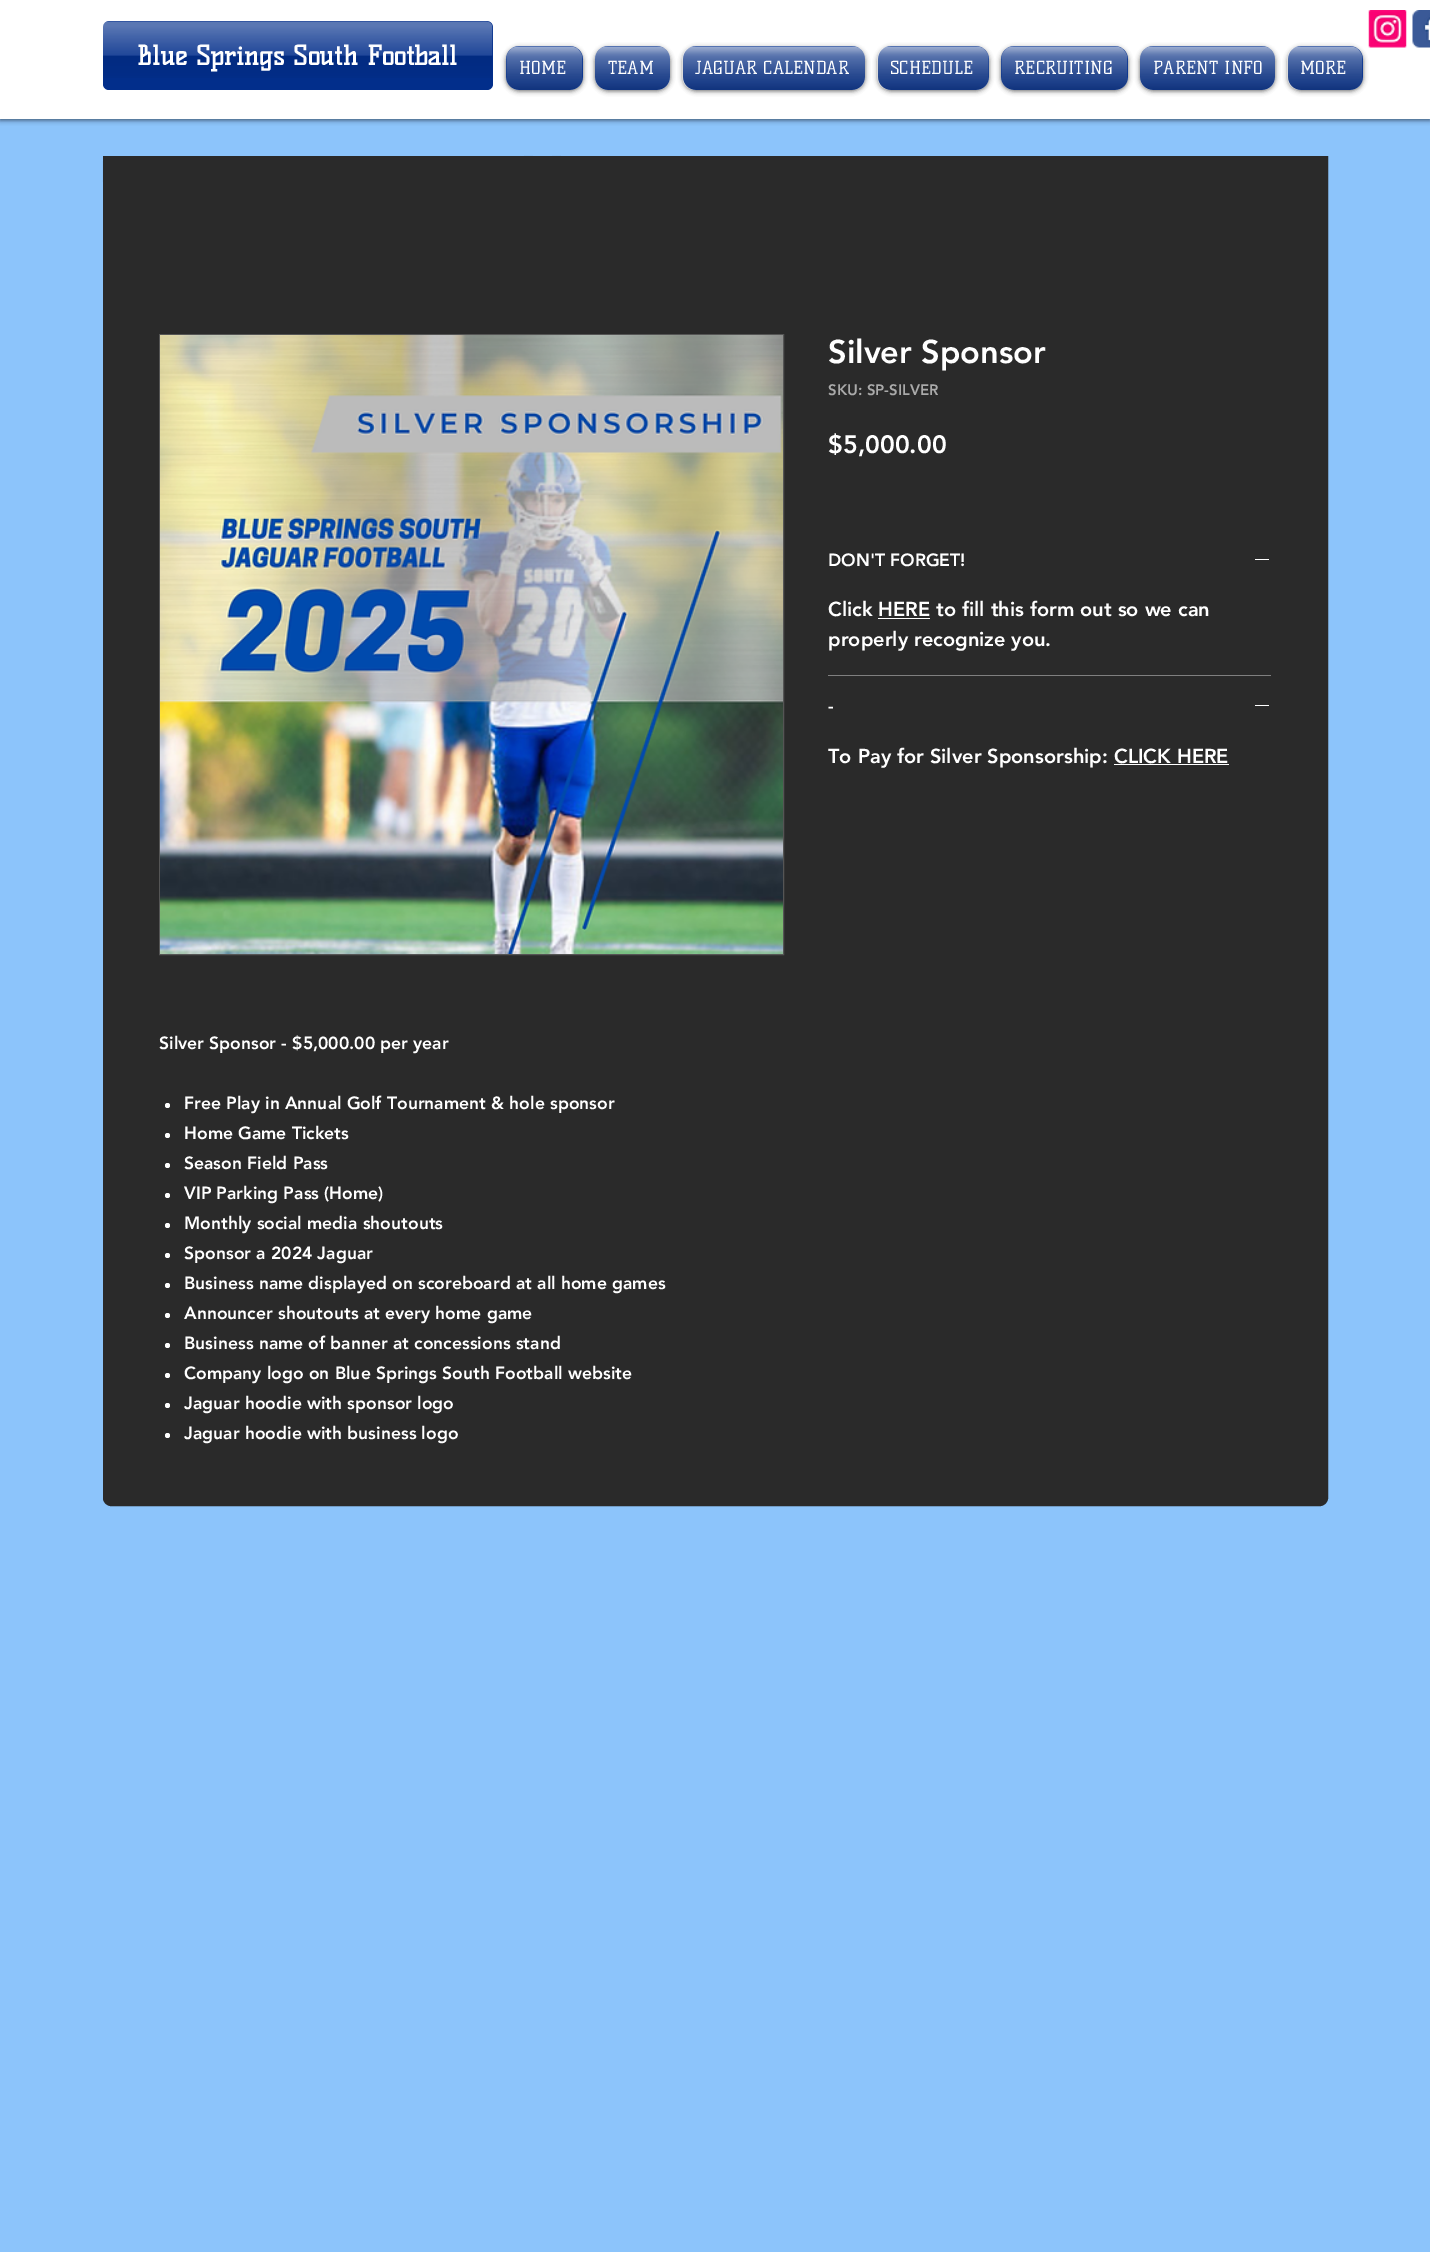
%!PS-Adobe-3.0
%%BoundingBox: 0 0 1430 2252
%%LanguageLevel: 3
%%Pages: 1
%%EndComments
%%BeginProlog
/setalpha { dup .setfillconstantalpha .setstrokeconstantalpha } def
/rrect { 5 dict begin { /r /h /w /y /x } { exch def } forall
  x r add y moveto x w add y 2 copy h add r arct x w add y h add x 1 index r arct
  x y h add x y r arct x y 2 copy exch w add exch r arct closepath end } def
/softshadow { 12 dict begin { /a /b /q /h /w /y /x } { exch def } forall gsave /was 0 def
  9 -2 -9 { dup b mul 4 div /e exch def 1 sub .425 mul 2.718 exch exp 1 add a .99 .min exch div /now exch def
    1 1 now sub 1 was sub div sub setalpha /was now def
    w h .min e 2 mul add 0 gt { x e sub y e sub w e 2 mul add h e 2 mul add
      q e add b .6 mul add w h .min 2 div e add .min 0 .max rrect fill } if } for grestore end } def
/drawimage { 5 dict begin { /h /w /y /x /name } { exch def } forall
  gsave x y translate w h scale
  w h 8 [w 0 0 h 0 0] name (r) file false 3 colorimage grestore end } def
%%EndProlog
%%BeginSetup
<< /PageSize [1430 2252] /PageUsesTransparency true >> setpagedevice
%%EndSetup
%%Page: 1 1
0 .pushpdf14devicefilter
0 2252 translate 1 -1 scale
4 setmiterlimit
0.549 0.769 0.984 setrgbcolor
0 0 1430 2252 rectfill
1 setgray
0 0 1430 119 rectfill
gsave
newpath 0 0 moveto 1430 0 lineto 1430 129 lineto 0 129 lineto closepath 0 -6 moveto 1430 -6 lineto 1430 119 lineto 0 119 lineto closepath eoclip newpath
0 setgray
0 -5 1430 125 0 2.5 0.6 softshadow
grestore
(images/1.raw) 1368 10 39 38 drawimage
(images/2.raw) 1412 10 18 38 drawimage
0.008 0.18 0.545 setrgbcolor
103 21 390 69 6 rrect fill
(images/3.raw) 103 21 390 57 drawimage
0 setgray
506 48 77 43 13 2.5 0.6 softshadow
0.008 0.18 0.545 setrgbcolor
506 46 77 44 13 rrect fill
(images/4.raw) 506 46 77 44 drawimage
(images/5.raw) 506 48 76 42 drawimage
0 setgray
595 48 75 43 13 2.5 0.6 softshadow
0.008 0.18 0.545 setrgbcolor
595 46 75 44 13 rrect fill
(images/6.raw) 595 46 75 44 drawimage
(images/7.raw) 595 48 75 42 drawimage
0 setgray
683 48 182 43 13 2.5 0.6 softshadow
0.008 0.18 0.545 setrgbcolor
683 46 182 44 13 rrect fill
(images/8.raw) 683 46 182 44 drawimage
(images/9.raw) 682 48 183 42 drawimage
0 setgray
878 48 111 43 13 2.5 0.6 softshadow
0.008 0.18 0.545 setrgbcolor
878 46 111 44 13 rrect fill
(images/10.raw) 878 46 111 44 drawimage
(images/11.raw) 877 48 112 42 drawimage
0 setgray
1001 48 127 43 13 2.5 0.6 softshadow
0.008 0.18 0.545 setrgbcolor
1001 46 127 44 13 rrect fill
(images/12.raw) 1001 46 127 44 drawimage
(images/13.raw) 1001 48 126 42 drawimage
0 setgray
1140 48 135 43 13 2.5 0.6 softshadow
0.008 0.18 0.545 setrgbcolor
1140 46 135 44 13 rrect fill
(images/14.raw) 1140 46 135 44 drawimage
(images/15.raw) 1140 48 135 42 drawimage
0 setgray
1288 48 75 43 13 2.5 0.6 softshadow
0.008 0.18 0.545 setrgbcolor
1288 46 75 44 13 rrect fill
(images/16.raw) 1288 46 75 44 drawimage
(images/17.raw) 1287 48 75 42 drawimage
(images/18.raw) 524 155 9 1 drawimage
(images/19.raw) 552 155 9 1 drawimage
0.165 setgray
newpath 103.5 156.5 moveto 1327.5 156.5 lineto 1327.5 1498 lineto 1327.5 1502 1324 1505.5 1320 1505.5 curveto 111 1505.5 lineto 107 1505.5 103.5 1502 103.5 1498 curveto closepath gsave fill grestore
stroke
0.537 0.753 0.965 setrgbcolor
102 161 1 21 rectfill
0.502 setgray
828 675 443 1 rectfill
1 setgray
1255 559 14 1 rectfill
878 618 52 1 rectfill
1255 705 14 1 rectfill
1114 764 115 1 rectfill
0.333 setgray
159.5 334.5 624 620 rectstroke
(images/20.raw) 160 335 623 619 drawimage
1 setgray
newpath 167.5 1105.5 2.5 0 360 arc closepath fill
newpath 167.5 1135.5 2.5 0 360 arc closepath fill
newpath 167.5 1165.5 2.5 0 360 arc closepath fill
newpath 167.5 1195.5 2.5 0 360 arc closepath fill
newpath 167.5 1225.5 2.5 0 360 arc closepath fill
newpath 167.5 1255.5 2.5 0 360 arc closepath fill
newpath 167.5 1285.5 2.5 0 360 arc closepath fill
newpath 167.5 1315.5 2.5 0 360 arc closepath fill
newpath 167.5 1345.5 2.5 0 360 arc closepath fill
newpath 167.5 1375.5 2.5 0 360 arc closepath fill
newpath 167.5 1405.5 2.5 0 360 arc closepath fill
newpath 167.5 1435.5 2.5 0 360 arc closepath fill
/KellySlab-Bold [26.25 0 0 -26.25 0 0] selectfont
137 65 moveto (Blue Springs South Football) show
/KellySlab-Regular [17.5 0 0 -17.5 0 0] selectfont
519 74 moveto (HOME) show
608 74 moveto (TEAM) show
695 74 moveto (JAGUAR CALENDAR) show
890 74 moveto (SCHEDULE) show
1014 74 moveto (RECRUITING) show
1153 74 moveto (PARENT INFO) show
1300 74 moveto (MORE) show
/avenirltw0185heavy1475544-Black [32.5 0 0 -32.5 0 0] selectfont
828 363 moveto (Silver Sponsor) show
/avenirltw0185heavy1475544-Black [15 0 0 -15 0 0] selectfont
0.667 setgray
828 395 moveto (SKU: SP-SILVER) show
/avenirltw0185heavy1475544-Black [25 0 0 -25 0 0] selectfont
1 setgray
828 453 moveto ($5,000.00) show
/avenirltw0185heavy1475544-Black [17.5 0 0 -17.5 0 0] selectfont
828 566 moveto (DON'T FORGET!) show
/avenirltw0185heavy1475544-Black [20 0 0 -20 0 0] selectfont
828 616 moveto (Click HERE to fill this form out so we can) show
828 646 moveto (properly recognize you.) show
/avenirltw0185heavy1475544-Black [17.5 0 0 -17.5 0 0] selectfont
828 712 moveto (-) show
/avenirltw0185heavy1475544-Black [20 0 0 -20 0 0] selectfont
828 763 moveto (To Pay for Silver Sponsorship: CLICK HERE) show
/avenirltw0185heavy1475544-Black [17.5 0 0 -17.5 0 0] selectfont
159 1049 moveto (Silver Sponsor - $5,000.00 per year) show
184 1109 moveto (Free Play in Annual Golf Tournament & hole sponsor) show
184 1139 moveto (Home Game Tickets) show
184 1169 moveto (Season Field Pass) show
184 1199 moveto (VIP Parking Pass \(Home\)) show
184 1229 moveto (Monthly social media shoutouts) show
184 1259 moveto (Sponsor a 2024 Jaguar) show
184 1289 moveto (Business name displayed on scoreboard at all home games) show
184 1319 moveto (Announcer shoutouts at every home game) show
184 1349 moveto (Business name of banner at concessions stand) show
184 1379 moveto (Company logo on Blue Springs South Football website) show
184 1409 moveto (Jaguar hoodie with sponsor logo) show
184 1439 moveto (Jaguar hoodie with business logo) show
.poppdf14devicefilter showpage
%%EOF
